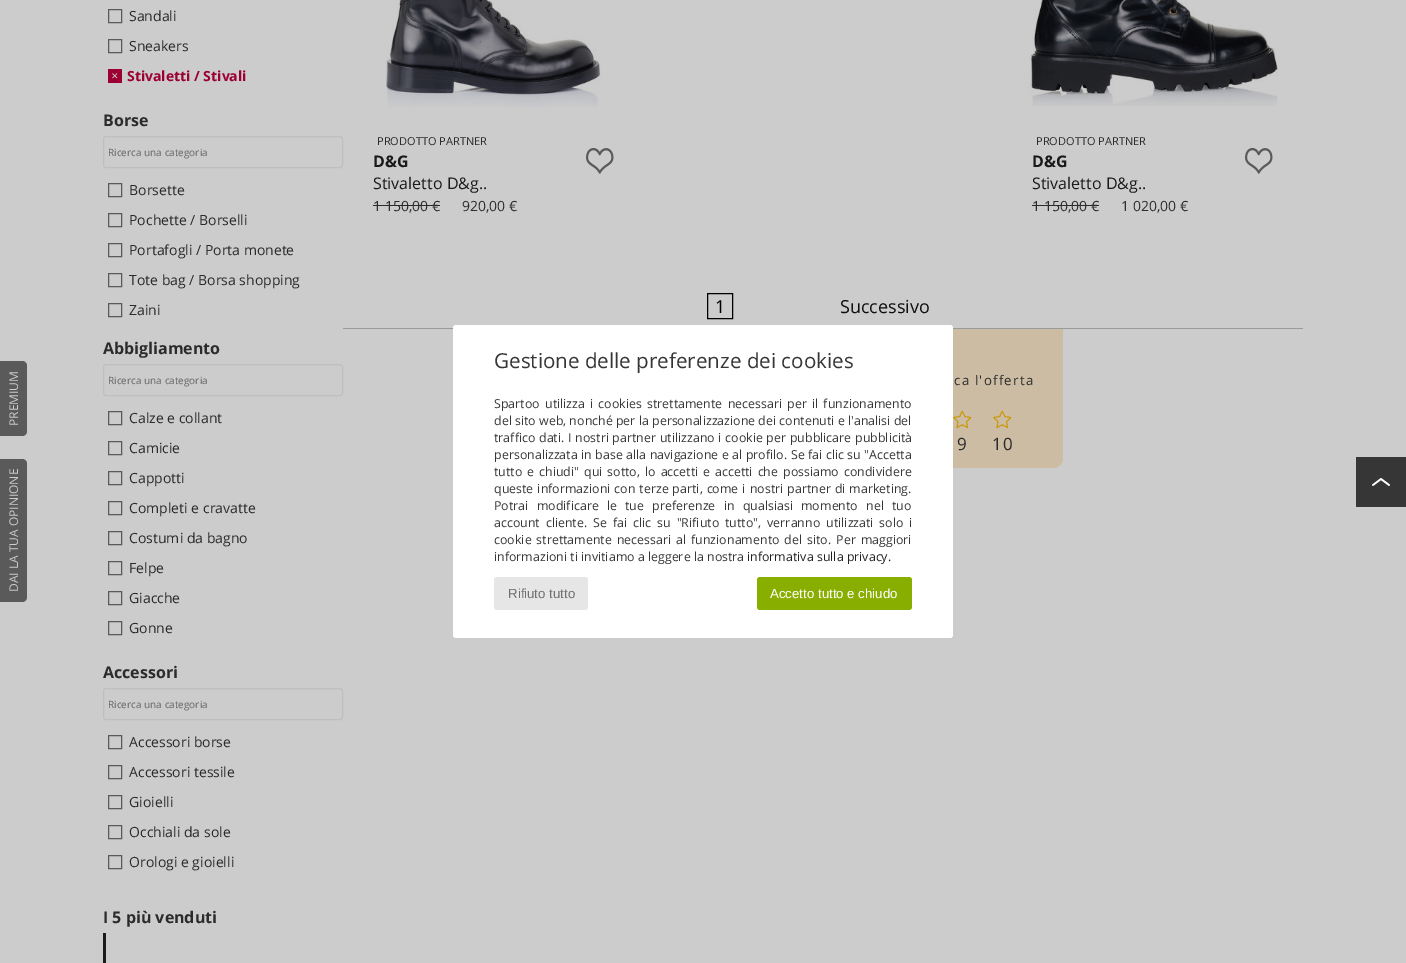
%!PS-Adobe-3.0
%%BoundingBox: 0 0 1406 963
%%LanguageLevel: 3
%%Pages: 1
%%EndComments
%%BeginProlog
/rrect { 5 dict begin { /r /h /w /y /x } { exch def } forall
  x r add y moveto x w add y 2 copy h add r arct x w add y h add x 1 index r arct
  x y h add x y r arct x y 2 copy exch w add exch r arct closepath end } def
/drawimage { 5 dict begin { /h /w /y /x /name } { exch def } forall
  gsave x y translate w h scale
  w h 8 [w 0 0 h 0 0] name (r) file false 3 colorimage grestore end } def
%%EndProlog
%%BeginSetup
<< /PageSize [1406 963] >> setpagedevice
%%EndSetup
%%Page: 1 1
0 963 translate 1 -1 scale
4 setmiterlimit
0.8 setgray
0 0 1406 963 rectfill
0.353 setgray
108.5 9.5 13 13 rectstroke
108.5 39.5 13 13 rectstroke
0.612 0 0.2 setrgbcolor
108 69 14 14 rectfill
0.753 0.745 0.745 setrgbcolor
103.5 136.5 239 31 2.5 rrect stroke
0.353 setgray
108.5 183.5 13 13 rectstroke
108.5 213.5 13 13 rectstroke
108.5 243.5 13 13 rectstroke
108.5 273.5 13 13 rectstroke
108.5 303.5 13 13 rectstroke
0.753 0.745 0.745 setrgbcolor
103.5 364.5 239 31 2.5 rrect stroke
0.353 setgray
108.5 411.5 13 13 rectstroke
108.5 441.5 13 13 rectstroke
108.5 471.5 13 13 rectstroke
108.5 501.5 13 13 rectstroke
108.5 531.5 13 13 rectstroke
108.5 561.5 13 13 rectstroke
108.5 591.5 13 13 rectstroke
108.5 621.5 13 13 rectstroke
0.753 0.745 0.745 setrgbcolor
103.5 688.5 239 31 2.5 rrect stroke
0.353 setgray
108.5 735.5 13 13 rectstroke
108.5 765.5 13 13 rectstroke
108.5 795.5 13 13 rectstroke
108.5 825.5 13 13 rectstroke
108.5 855.5 13 13 rectstroke
0.102 setgray
103 933 3 30 rectfill
(images/1.raw) 385 0 216 107 drawimage
0.169 setgray
373 205 67 1 rectfill
(images/2.raw) 586 147 28 27 drawimage
(images/3.raw) 1028 0 250 106 drawimage
1032 205 67 1 rectfill
(images/2.raw) 1245 147 28 27 drawimage
0.604 setgray
343 328 960 1 rectfill
0 setgray
707.5 293.5 25 25 rectstroke
0.8 0.737 0.639 setrgbcolor
newpath 583 329 moveto 1063 329 lineto 1063 458 lineto 1063 463.5 1058.5 468 1053 468 curveto 593 468 lineto 587.5 468 583 463.5 583 458 curveto closepath fill
(images/4.raw) 953 410 19 19 drawimage
(images/4.raw) 993 410 19 19 drawimage
0.353 setgray
newpath 0 436 moveto 0 361 lineto 22 361 lineto 25 361 27 363 27 366 curveto 27 431 lineto 27 434 25 436 22 436 curveto closepath fill
newpath 0 602 moveto 0 459 lineto 22 459 lineto 25 459 27 461 27 464 curveto 27 597 lineto 27 600 25 602 22 602 curveto closepath fill
1 setgray
453 325 500 313 3 rrect fill
0.902 setgray
494 577 94 33 3 rrect fill
0.533 0.686 0 setrgbcolor
757 577 155 33 3 rrect fill
0.212 setgray
1356 457 50 50 rectfill
(images/5.raw) 1372 478 18 8 drawimage
/OpenSans-Regular [14 0 0 -14 0 0] selectfont
0.169 setgray
129 21 moveto (Sandali) show
129 51 moveto (Sneakers) show
/DejaVuSans-Regular [9 0 0 -9 0 0] selectfont
0.8 setgray
111 79 moveto (✕) show
/OpenSans-Bold [14 0 0 -14 0 0] selectfont
0.612 0 0.2 setrgbcolor
127 81 moveto (Stivaletti / Stivali) show
/OpenSans-Bold [16 0 0 -16 0 0] selectfont
0.169 setgray
103 126 moveto (Borse) show
/OpenSans-Regular [10 0 0 -10 0 0] selectfont
0.4 setgray
108 156 moveto (Ricerca una categoria) show
/OpenSans-Regular [14 0 0 -14 0 0] selectfont
0.169 setgray
129 195 moveto (Borsette) show
129 225 moveto (Pochette / Borselli) show
129 255 moveto (Portafogli / Porta monete) show
129 285 moveto (Tote bag / Borsa shopping) show
129 315 moveto (Zaini) show
/OpenSans-Bold [16 0 0 -16 0 0] selectfont
103 354 moveto (Abbigliamento) show
/OpenSans-Regular [10 0 0 -10 0 0] selectfont
0.4 setgray
108 384 moveto (Ricerca una categoria) show
/OpenSans-Regular [14 0 0 -14 0 0] selectfont
0.169 setgray
129 423 moveto (Calze e collant) show
129 453 moveto (Camicie) show
129 483 moveto (Cappotti) show
129 513 moveto (Completi e cravatte) show
129 543 moveto (Costumi da bagno) show
129 573 moveto (Felpe) show
129 603 moveto (Giacche) show
129 633 moveto (Gonne) show
/OpenSans-Bold [16 0 0 -16 0 0] selectfont
103 678 moveto (Accessori) show
/OpenSans-Regular [10 0 0 -10 0 0] selectfont
0.4 setgray
108 708 moveto (Ricerca una categoria) show
/OpenSans-Regular [14 0 0 -14 0 0] selectfont
0.169 setgray
129 747 moveto (Accessori borse) show
129 777 moveto (Accessori tessile) show
129 807 moveto (Gioielli) show
129 837 moveto (Occhiali da sole) show
129 867 moveto (Orologi e gioielli) show
/OpenSans-Bold [16 0 0 -16 0 0] selectfont
103 923 moveto (I 5 più venduti) show
/OpenSans-Regular [11 0 0 -11 0 0] selectfont
377 145 moveto (PRODOTTO PARTNER) show
/OpenSans-Bold [16 0 0 -16 0 0] selectfont
0.102 setgray
373 167 moveto (D&G) show
/OpenSans-Regular [16 0 0 -16 0 0] selectfont
373 189 moveto (Stivaletto D&g..) show
/OpenSans-Regular [14 0 0 -14 0 0] selectfont
0.169 setgray
373 211 moveto (1 150,00 €) show
462 211 moveto (920,00 €) show
/OpenSans-Regular [11 0 0 -11 0 0] selectfont
1036 145 moveto (PRODOTTO PARTNER) show
/OpenSans-Bold [16 0 0 -16 0 0] selectfont
0.102 setgray
1032 167 moveto (D&G) show
/OpenSans-Regular [16 0 0 -16 0 0] selectfont
1032 189 moveto (Stivaletto D&g..) show
/OpenSans-Regular [14 0 0 -14 0 0] selectfont
0.169 setgray
1032 211 moveto (1 150,00 €) show
1121 211 moveto (1 020,00 €) show
/OpenSans-Regular [18 0 0 -18 0 0] selectfont
0 setgray
715 313 moveto (1) show
0.055 setgray
840 313 moveto (Successivo) show
/OpenSans-Regular [13.25 0 0 -13.25 0 0] selectfont
0.169 setgray
954 385 moveto 1.25 0 (ca l'offerta) ashow
/OpenSans-Regular [17 0 0 -17 0 0] selectfont
957 450 moveto 1.25 0 (9) ashow
992 450 moveto 1.25 0 (10) ashow
/OpenSans-Regular [12 0 0 -12 0 0] selectfont
0.8 setgray
gsave 18 426 translate -90 rotate 0 0 moveto (PREMIUM) show grestore
gsave 18 592 translate -90 rotate 0 0 moveto (DAI LA TUA OPINIONE) show grestore
/OpenSans-Regular [20.6 0 0 -20.6 0 0] selectfont
0.212 setgray
494 368 moveto (Gestione delle preferenze dei cookies) show
/OpenSans-Regular [12.4 0 0 -12.4 0 0] selectfont
494 408 moveto 2 0 32 (Spartoo utilizza i cookies strettamente necessari per il funzionamento) widthshow
494 425 moveto (del sito web, nonché per la personalizzazione dei contenuti e l'analisi del) show
494 442 moveto 0.5 0 32 (traffico dati. I nostri partner utilizzano i cookie per pubblicare pubblicità) widthshow
494 459 moveto 0.3 0 32 (personalizzata in base alla navigazione e al profilo. Se fai clic su "Accetta) widthshow
494 476 moveto 1.75 0 32 (tutto e chiudi" qui sotto, lo accetti e accetti che possiamo condividere) widthshow
494 493 moveto 0.75 0 32 (queste informazioni con terze parti, come i nostri partner di marketing.) widthshow
494 510 moveto 5 0 32 (Potrai modificare le tue preferenze in qualsiasi momento nel tuo) widthshow
494 527 moveto 2.75 0 32 (account cliente. Se fai clic su "Rifiuto tutto", verranno utilizzati solo i) widthshow
494 544 moveto 1.75 0 32 (cookie strettamente necessari al funzionamento del sito. Per maggiori) widthshow
494 561 moveto (informazioni ti invitiamo a leggere la nostra) show
0.129 setgray
747 561 moveto (informativa sulla privacy.) show
/LiberationSans-Regular [13.25 0 0 -13.25 0 0] selectfont
0.439 setgray
508 598 moveto (Rifiuto tutto) show
1 setgray
770 598 moveto (Accetto tutto e chiudo) show
showpage
%%EOF
